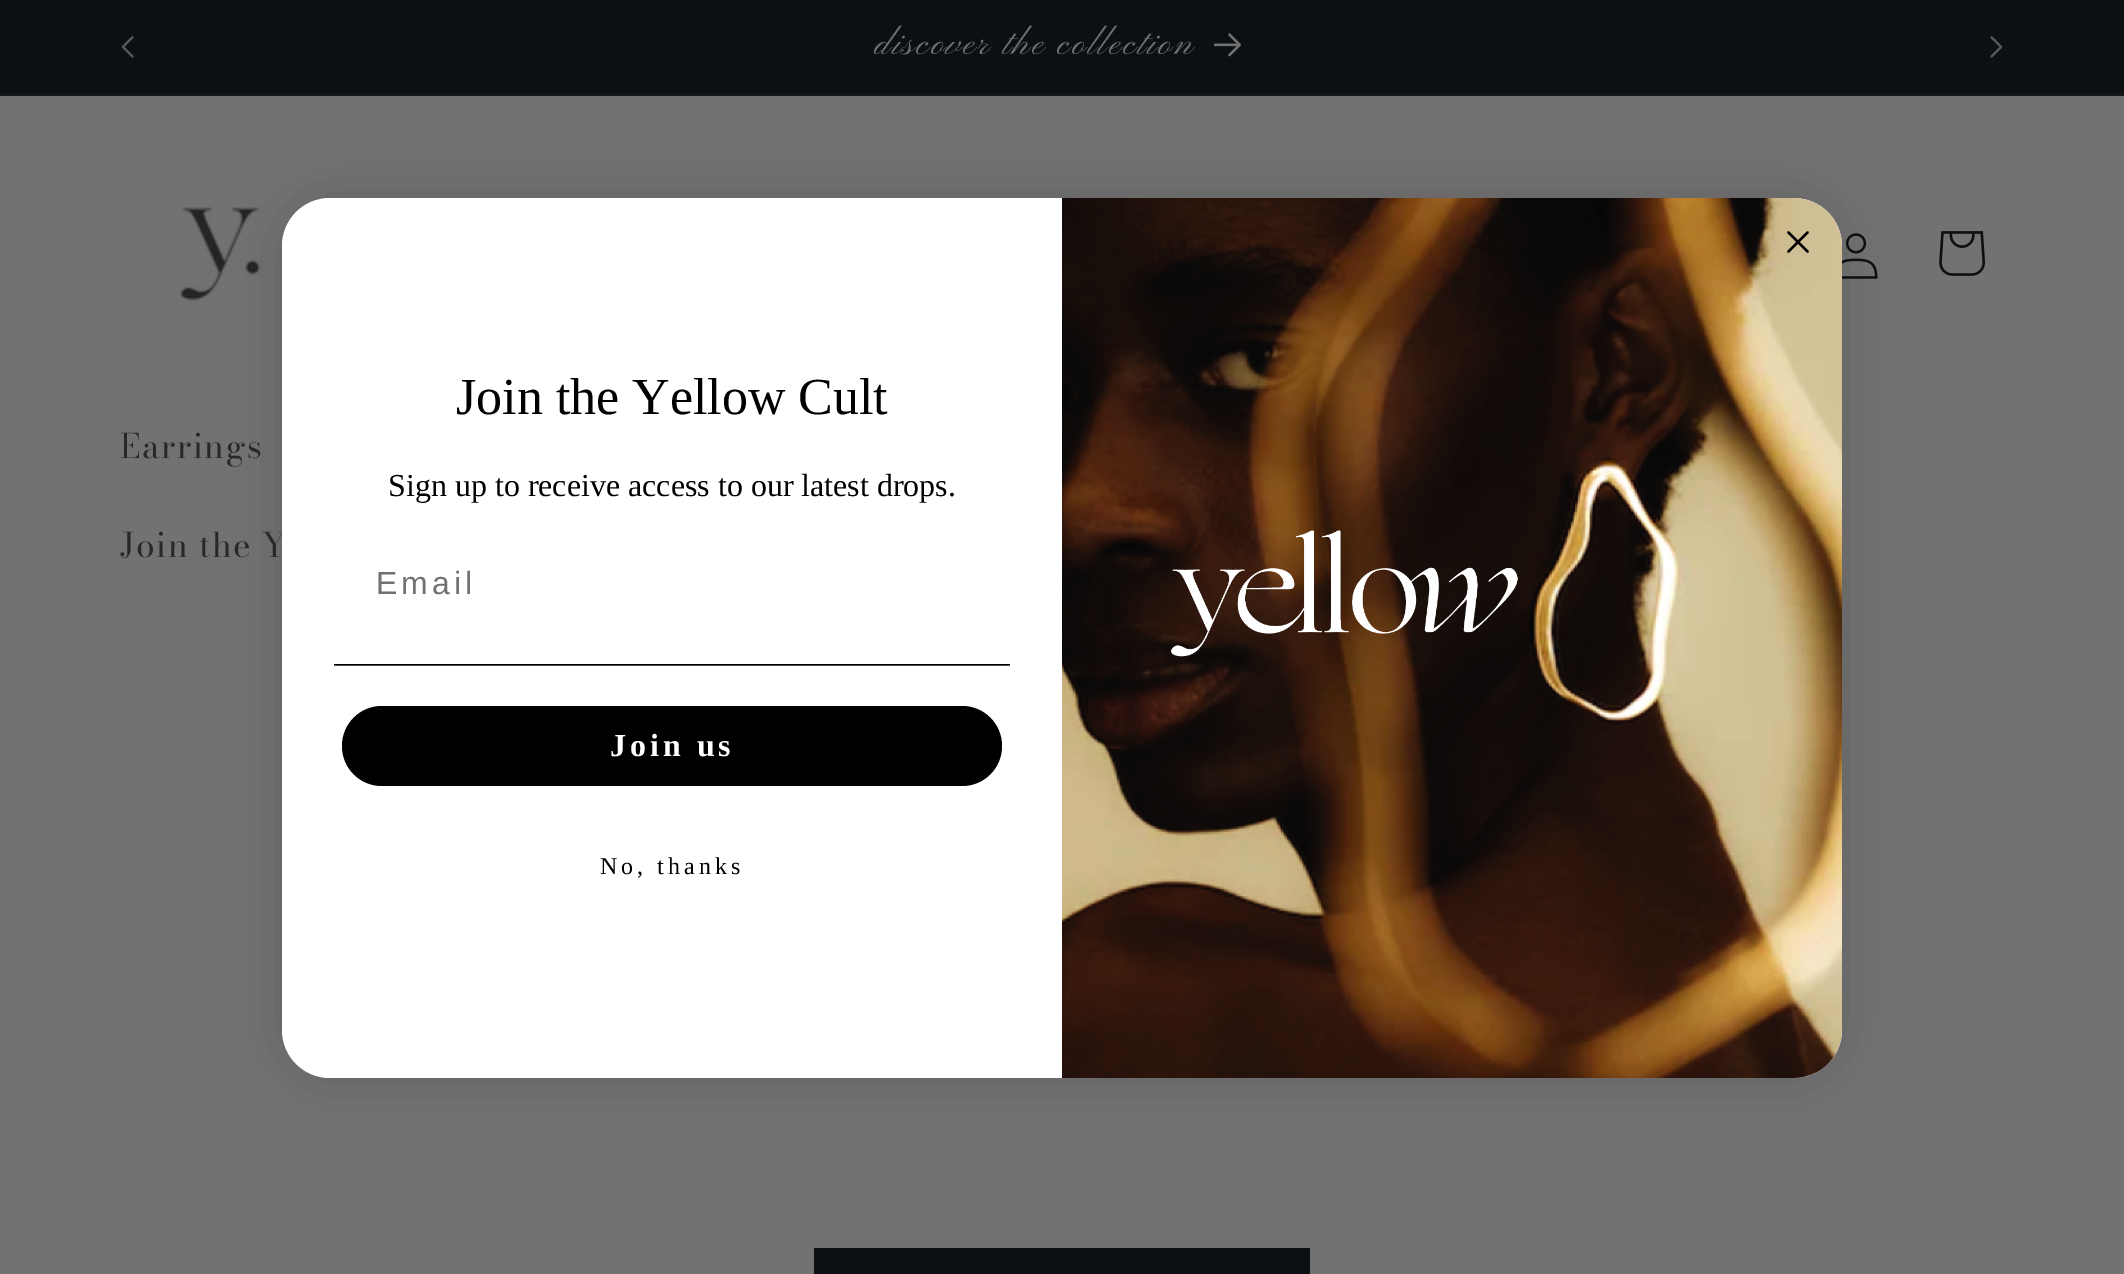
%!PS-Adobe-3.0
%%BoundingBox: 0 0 2124 1274
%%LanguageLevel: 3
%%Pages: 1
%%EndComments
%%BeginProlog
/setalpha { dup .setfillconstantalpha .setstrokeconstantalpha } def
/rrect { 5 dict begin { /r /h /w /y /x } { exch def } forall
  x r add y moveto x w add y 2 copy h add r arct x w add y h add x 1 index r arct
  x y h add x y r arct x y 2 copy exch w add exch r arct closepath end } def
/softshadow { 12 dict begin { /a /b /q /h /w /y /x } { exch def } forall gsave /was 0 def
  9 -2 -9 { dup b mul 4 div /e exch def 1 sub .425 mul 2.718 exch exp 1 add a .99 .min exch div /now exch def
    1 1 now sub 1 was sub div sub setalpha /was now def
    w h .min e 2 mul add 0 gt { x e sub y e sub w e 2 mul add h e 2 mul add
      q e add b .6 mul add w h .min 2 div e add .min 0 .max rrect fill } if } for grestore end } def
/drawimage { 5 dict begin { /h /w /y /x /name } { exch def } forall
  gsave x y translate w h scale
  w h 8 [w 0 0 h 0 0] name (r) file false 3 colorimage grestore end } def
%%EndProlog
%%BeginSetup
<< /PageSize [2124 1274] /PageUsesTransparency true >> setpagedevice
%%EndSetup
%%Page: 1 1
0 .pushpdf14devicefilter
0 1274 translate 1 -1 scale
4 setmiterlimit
0.447 setgray
0 0 2124 1274 rectfill
0.051 0.063 0.075 setrgbcolor
0 0 2124 94 rectfill
0.082 0.09 0.106 setrgbcolor
0 94 2124 2 rectfill
(images/1.raw) 121 36 13 22 drawimage
(images/2.raw) 1214 33 27 24 drawimage
(images/3.raw) 1990 36 13 22 drawimage
(images/4.raw) 179 203 83 101 drawimage
(images/5.raw) 1842 233 36 46 drawimage
(images/6.raw) 1939 231 46 45 drawimage
0 setgray
282 198 1560 880 48 30 0.15 softshadow
0.051 0.063 0.075 setrgbcolor
814 1248 496 26 rectfill
/PinyonScript-Regular [36.5 0 0 -36.5 0 0] selectfont
0.443 setgray
874 54 moveto 2.4 0 (discover the collection) ashow
/BodoniModa-Regular [33.5 0 0 -33.5 0 0] selectfont
0.149 0.157 0.169 setrgbcolor
120 458 moveto 1.5 0 (Earrings) ashow
120 557 moveto 1.5 0 (Join the Y) ashow
1 setgray
282 198 1560 880 48 rrect fill
/LiberationSerif-Regular [52 0 0 -52 0 0] selectfont
0 setgray
456 414 moveto (Join the Yellow Cult) show
/LiberationSerif-Regular [32 0 0 -32 0 0] selectfont
388 496 moveto (Sign up to receive access to our latest drops.) show
/LiberationSans-Regular [32 0 0 -32 0 0] selectfont
0.443 setgray
376 594 moveto 4 0 (Email) ashow
(images/7.raw) 334 664 676 2 drawimage
0 setgray
342 706 660 80 40 rrect fill
/LiberationSerif-Bold [32 0 0 -32 0 0] selectfont
1 setgray
610 756 moveto 4 0 (Join us) ashow
/LiberationSerif-Regular [24 0 0 -24 0 0] selectfont
0 setgray
600 874 moveto 4 0 (No, thanks) ashow
(images/8.raw) 1062 198 780 880 drawimage
2.4 setlinewidth
1 setlinecap
1 setlinejoin
newpath 1788.5 232.5 moveto 1807.5 251.5 lineto 1788.5 251.5 moveto 1807.5 232.5 lineto closepath stroke
.poppdf14devicefilter showpage
%%EOF
